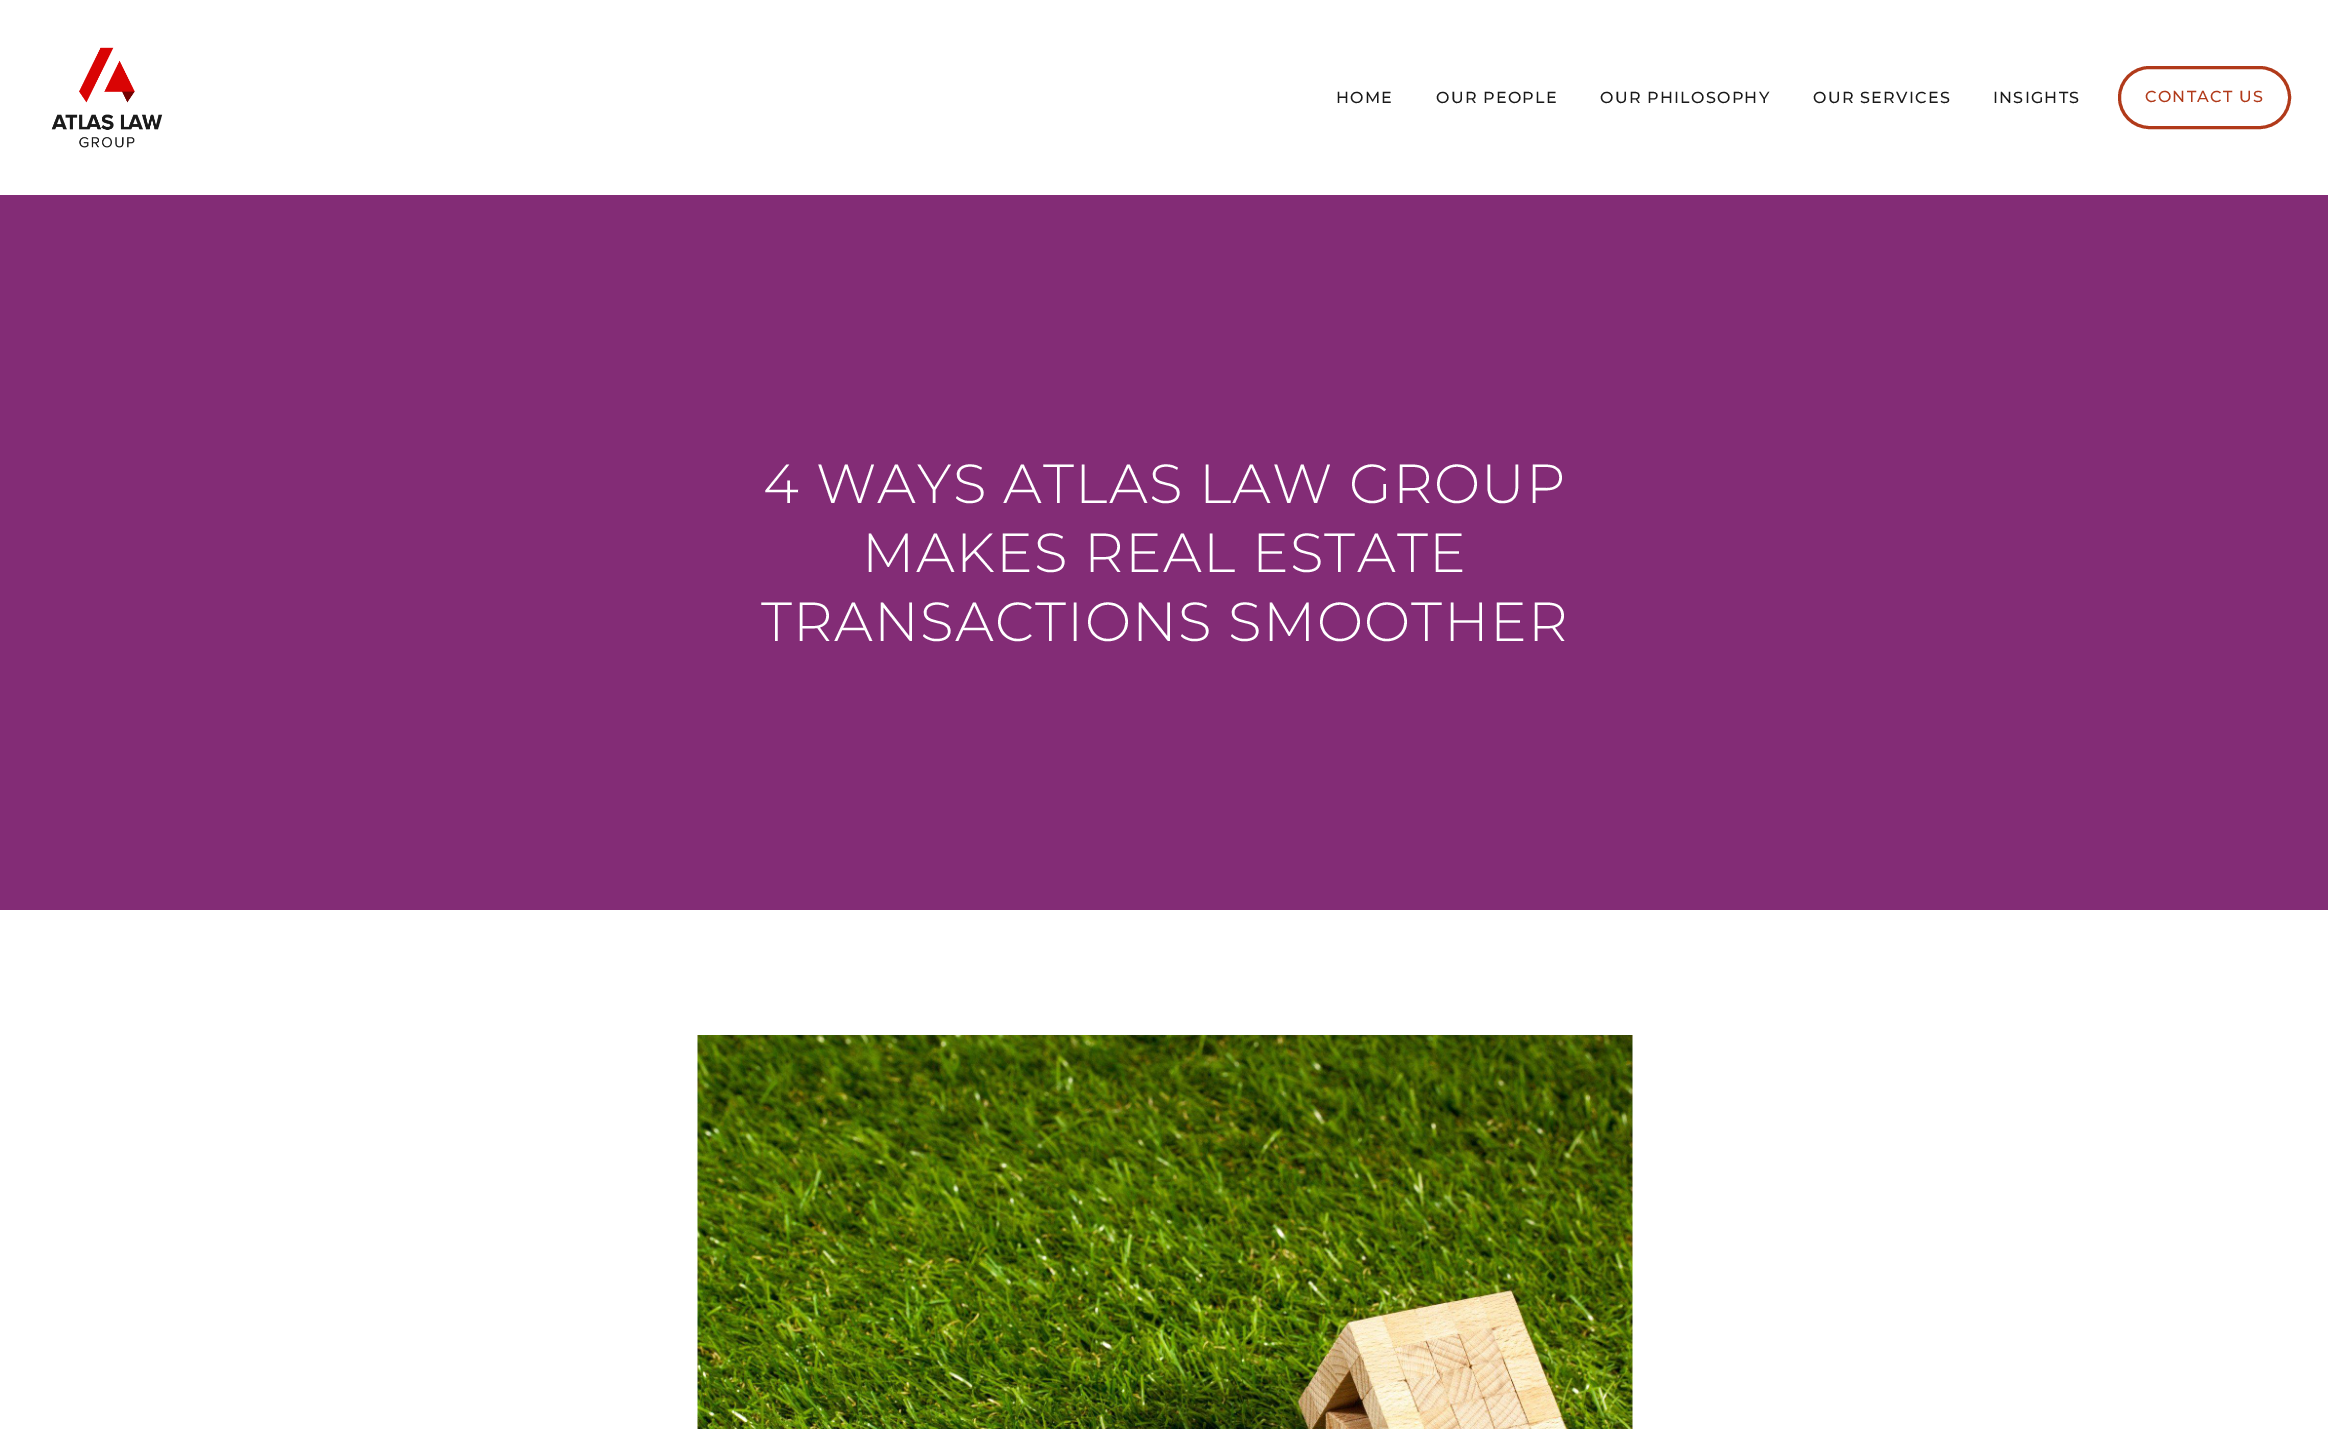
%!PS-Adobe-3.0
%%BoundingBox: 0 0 2328 1429
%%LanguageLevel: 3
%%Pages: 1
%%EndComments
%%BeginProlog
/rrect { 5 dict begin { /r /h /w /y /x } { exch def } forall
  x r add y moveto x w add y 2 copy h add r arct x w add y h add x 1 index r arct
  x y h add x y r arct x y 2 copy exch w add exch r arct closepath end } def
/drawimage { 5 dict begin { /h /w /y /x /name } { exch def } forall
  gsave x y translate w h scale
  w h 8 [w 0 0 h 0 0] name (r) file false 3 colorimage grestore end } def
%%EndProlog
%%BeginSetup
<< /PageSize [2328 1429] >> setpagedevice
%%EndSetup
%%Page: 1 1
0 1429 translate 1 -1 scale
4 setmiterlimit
1 setgray
0 0 2328 1429 rectfill
(images/1.raw) 51 47 112 101 drawimage
0.694 0.227 0.102 setrgbcolor
3 setlinewidth
2119.5 67.5 170 60 30 rrect stroke
0.514 0.173 0.463 setrgbcolor
0 195 2328 715 rectfill
(images/2.raw) 697 1035 936 394 drawimage
/Montserrat-Medium [16 0 0 -16 0 0] selectfont
0.102 setgray
1336 103 moveto 1.25 0 (HOME) ashow
1436 103 moveto 1.25 0 (OUR PEOPLE) ashow
1600 103 moveto 1.25 0 (OUR PHILOSOPHY) ashow
1813 103 moveto 1.25 0 (OUR SERVICES) ashow
1993 103 moveto 1.25 0 (INSIGHTS) ashow
0.694 0.227 0.102 setrgbcolor
2145 102 moveto 1.25 0 (CONTACT US) ashow
/Montserrat-Light [55 0 0 -55 0 0] selectfont
1 setgray
763 503 moveto 1.25 0 (4 WAYS ATLAS LAW GROUP) ashow
862 572 moveto 1.25 0 (MAKES REAL ESTATE) ashow
761 641 moveto 1.25 0 (TRANSACTIONS SMOOTHER) ashow
showpage
%%EOF
